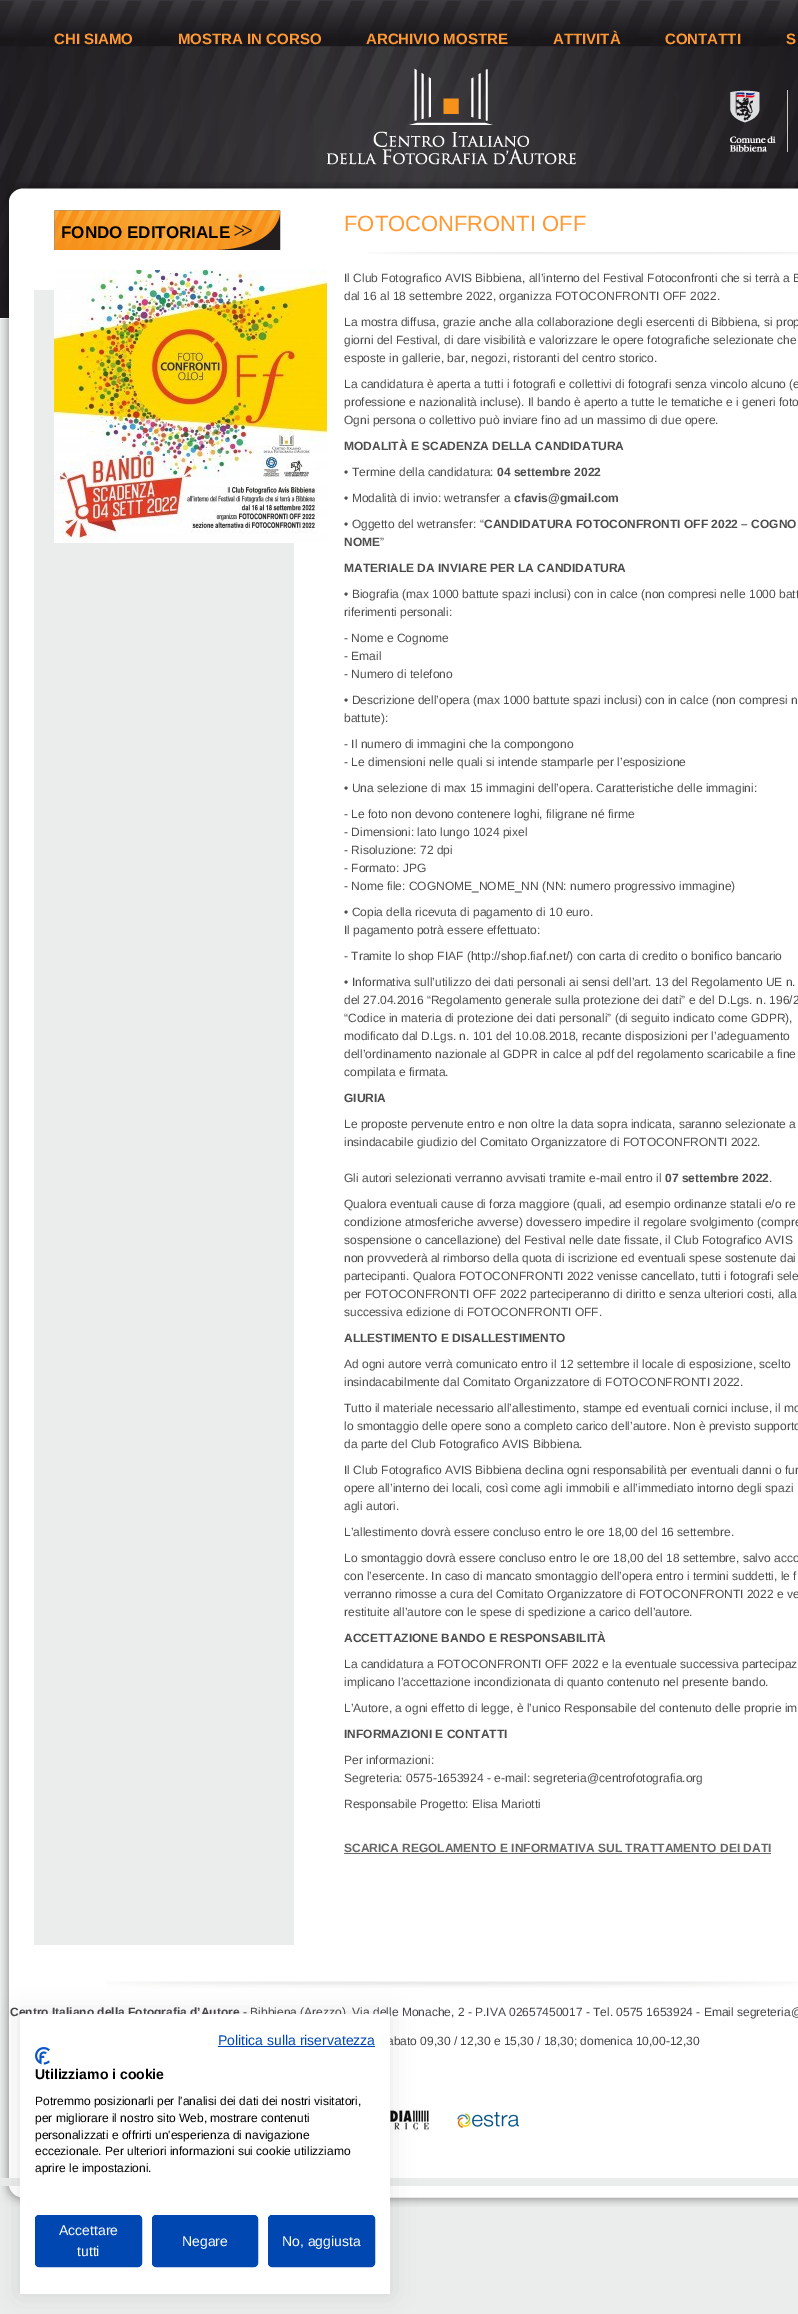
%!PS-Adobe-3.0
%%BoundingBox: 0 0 798 2314
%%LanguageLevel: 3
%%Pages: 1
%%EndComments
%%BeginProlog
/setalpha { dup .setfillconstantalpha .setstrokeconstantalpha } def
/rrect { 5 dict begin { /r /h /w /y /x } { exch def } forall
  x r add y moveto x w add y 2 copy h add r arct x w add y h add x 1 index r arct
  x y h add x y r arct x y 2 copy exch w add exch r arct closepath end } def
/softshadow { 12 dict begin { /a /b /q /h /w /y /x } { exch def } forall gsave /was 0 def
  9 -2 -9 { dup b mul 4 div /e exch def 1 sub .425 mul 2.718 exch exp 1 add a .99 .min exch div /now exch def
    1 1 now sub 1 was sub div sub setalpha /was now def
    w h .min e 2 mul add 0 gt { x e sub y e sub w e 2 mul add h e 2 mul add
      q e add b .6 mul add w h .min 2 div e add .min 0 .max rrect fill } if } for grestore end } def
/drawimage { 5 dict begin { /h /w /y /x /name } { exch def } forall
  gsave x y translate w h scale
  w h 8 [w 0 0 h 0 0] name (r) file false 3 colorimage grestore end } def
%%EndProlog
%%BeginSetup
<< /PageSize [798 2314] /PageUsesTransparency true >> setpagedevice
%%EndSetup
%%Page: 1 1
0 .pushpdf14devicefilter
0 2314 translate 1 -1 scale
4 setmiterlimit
0.922 0.925 0.925 setrgbcolor
0 0 798 2314 rectfill
(images/1.raw) 0 0 798 319 drawimage
(images/2.raw) 326 68 250 97 drawimage
(images/3.raw) 730 90 46 62 drawimage
0.75 setalpha
1 setgray
787 90 1 62 rectfill
1 setalpha
(images/4.raw) 6 182 792 18 drawimage
(images/5.raw) 1 200 797 1978 drawimage
(images/6.raw) 54 210 227 40 drawimage
0.922 0.925 0.925 setrgbcolor
34 290 260 1655 rectfill
(images/7.raw) 54 270 273 273 drawimage
(images/8.raw) 367 252 431 3 drawimage
0.4 setgray
344 1853 427 1 rectfill
(images/9.raw) 106 1981 692 7 drawimage
(images/10.raw) 390 2108 41 24 drawimage
(images/11.raw) 457 2112 62 16 drawimage
(images/13.raw) 1 2186 797 21 drawimage
0 setgray
20 2014 370 280 0 12 0.1 softshadow
/LiberationSans-Bold [15 0 0 -15 0 0] selectfont
1 0.6 0.2 setrgbcolor
54 44 moveto (CHI SIAMO) show
178 44 moveto (MOSTRA IN CORSO) show
366 44 moveto (ARCHIVIO MOSTRE) show
553 44 moveto (ATTIVITÀ) show
665 44 moveto (CONTATTI) show
786 44 moveto (S) show
/LiberationSans-Bold [17 0 0 -17 0 0] selectfont
0 setgray
61 238 moveto (FONDO EDITORIALE) show
/LiberationSans-Regular [22 0 0 -22 0 0] selectfont
1 0.6 0.2 setrgbcolor
344 231 moveto (FOTOCONFRONTI OFF) show
/LiberationSans-Regular [12 0 0 -12 0 0] selectfont
0.302 setgray
344 282 moveto (Il Club Fotografico AVIS Bibbiena, all’interno del Festival Fotoconfronti che si terrà a B) show
344 300 moveto (dal 16 al 18 settembre 2022, organizza FOTOCONFRONTI OFF 2022.) show
344 326 moveto (La mostra diffusa, grazie anche alla collaborazione degli esercenti di Bibbiena, si prop) show
344 344 moveto (giorni del Festival, di dare visibilità e valorizzare le opere fotografiche selezionate che) show
344 362 moveto (esposte in gallerie, bar, negozi, ristoranti del centro storico.) show
344 388 moveto (La candidatura è aperta a tutti i fotografi e collettivi di fotografi senza vincolo alcuno \(e) show
344 406 moveto (professione e nazionalità incluse\). Il bando è aperto a tutte le tematiche e i generi foto) show
344 424 moveto (Ogni persona o collettivo può inviare fino ad un massimo di due opere.) show
/LiberationSans-Bold [12 0 0 -12 0 0] selectfont
344 450 moveto (MODALITÀ E SCADENZA DELLA CANDIDATURA) show
/LiberationSans-Regular [12 0 0 -12 0 0] selectfont
344 476 moveto (• Termine della candidatura:) show
/LiberationSans-Bold [12 0 0 -12 0 0] selectfont
497 476 moveto (04 settembre 2022) show
/LiberationSans-Regular [12 0 0 -12 0 0] selectfont
344 502 moveto (• Modalità di invio: wetransfer a) show
/LiberationSans-Bold [12 0 0 -12 0 0] selectfont
514 502 moveto (cfavis@gmail.com) show
/LiberationSans-Regular [12 0 0 -12 0 0] selectfont
344 528 moveto (• Oggetto del wetransfer: “) show
/LiberationSans-Bold [12 0 0 -12 0 0] selectfont
484 528 moveto (CANDIDATURA FOTOCONFRONTI OFF 2022 – COGNO) show
344 546 moveto (NOME) show
/LiberationSans-Regular [12 0 0 -12 0 0] selectfont
380 546 moveto (”) show
/LiberationSans-Bold [12 0 0 -12 0 0] selectfont
344 572 moveto (MATERIALE DA INVIARE PER LA CANDIDATURA) show
/LiberationSans-Regular [12 0 0 -12 0 0] selectfont
344 598 moveto (• Biografia \(max 1000 battute spazi inclusi\) con in calce \(non compresi nelle 1000 batt) show
344 616 moveto (riferimenti personali:) show
344 642 moveto (- Nome e Cognome) show
344 660 moveto (- Email) show
344 678 moveto (- Numero di telefono) show
344 704 moveto (• Descrizione dell’opera \(max 1000 battute spazi inclusi\) con in calce \(non compresi n) show
344 722 moveto (battute\):) show
344 748 moveto (- Il numero di immagini che la compongono) show
344 766 moveto (- Le dimensioni nelle quali si intende stamparle per l’esposizione) show
344 792 moveto (• Una selezione di max 15 immagini dell’opera. Caratteristiche delle immagini:) show
344 818 moveto (- Le foto non devono contenere loghi, filigrane né firme) show
344 836 moveto (- Dimensioni: lato lungo 1024 pixel) show
344 854 moveto (- Risoluzione: 72 dpi) show
344 872 moveto (- Formato: JPG) show
344 890 moveto (- Nome file: COGNOME_NOME_NN \(NN: numero progressivo immagine\)) show
344 916 moveto (• Copia della ricevuta di pagamento di 10 euro.) show
344 934 moveto (Il pagamento potrà essere effettuato:) show
344 960 moveto (- Tramite lo shop FIAF \(http://shop.fiaf.net/\) con carta di credito o bonifico bancario) show
344 986 moveto (• Informativa sull’utilizzo dei dati personali ai sensi dell’art. 13 del Regolamento UE n.) show
344 1004 moveto (del 27.04.2016 “Regolamento generale sulla protezione dei dati” e del D.Lgs. n. 196/2) show
344 1022 moveto (“Codice in materia di protezione dei dati personali” \(di seguito indicato come GDPR\),) show
344 1040 moveto (modificato dal D.Lgs. n. 101 del 10.08.2018, recante disposizioni per l’adeguamento) show
344 1058 moveto (dell’ordinamento nazionale al GDPR in calce al pdf del regolamento scaricabile a fine) show
344 1076 moveto (compilata e firmata.) show
/LiberationSans-Bold [12 0 0 -12 0 0] selectfont
344 1102 moveto (GIURIA) show
/LiberationSans-Regular [12 0 0 -12 0 0] selectfont
344 1128 moveto (Le proposte pervenute entro e non oltre la data sopra indicata, saranno selezionate a) show
344 1146 moveto (insindacabile giudizio del Comitato Organizzatore di FOTOCONFRONTI 2022.) show
344 1182 moveto (Gli autori selezionati verranno avvisati tramite e-mail entro il) show
/LiberationSans-Bold [12 0 0 -12 0 0] selectfont
665 1182 moveto (07 settembre 2022) show
/LiberationSans-Regular [12 0 0 -12 0 0] selectfont
769 1182 moveto (.) show
344 1208 moveto (Qualora eventuali cause di forza maggiore \(quali, ad esempio ordinanze statali e/o re) show
344 1226 moveto (condizione atmosferiche avverse\) dovessero impedire il regolare svolgimento \(compre) show
344 1244 moveto (sospensione o cancellazione\) del Festival nelle date fissate, il Club Fotografico AVIS) show
344 1262 moveto (non provvederà al rimborso della quota di iscrizione ed eventuali spese sostenute dai) show
344 1280 moveto (partecipanti. Qualora FOTOCONFRONTI 2022 venisse cancellato, tutti i fotografi sele) show
344 1298 moveto (per FOTOCONFRONTI OFF 2022 parteciperanno di diritto e senza ulteriori costi, alla) show
344 1316 moveto (successiva edizione di FOTOCONFRONTI OFF.) show
/LiberationSans-Bold [12 0 0 -12 0 0] selectfont
344 1342 moveto (ALLESTIMENTO E DISALLESTIMENTO) show
/LiberationSans-Regular [12 0 0 -12 0 0] selectfont
344 1368 moveto (Ad ogni autore verrà comunicato entro il 12 settembre il locale di esposizione, scelto) show
344 1386 moveto (insindacabilmente dal Comitato Organizzatore di FOTOCONFRONTI 2022.) show
344 1412 moveto (Tutto il materiale necessario all’allestimento, stampe ed eventuali cornici incluse, il mo) show
344 1430 moveto (lo smontaggio delle opere sono a completo carico dell’autore. Non è previsto supporto) show
344 1448 moveto (da parte del Club Fotografico AVIS Bibbiena.) show
344 1474 moveto (Il Club Fotografico AVIS Bibbiena declina ogni responsabilità per eventuali danni o fur) show
344 1492 moveto (opere all’interno dei locali, così come agli immobili e all’immediato intorno degli spazi) show
344 1510 moveto (agli autori.) show
344 1536 moveto (L’allestimento dovrà essere concluso entro le ore 18,00 del 16 settembre.) show
344 1562 moveto (Lo smontaggio dovrà essere concluso entro le ore 18,00 del 18 settembre, salvo acco) show
344 1580 moveto (con l’esercente. In caso di mancato smontaggio dell’opera entro i termini suddetti, le f) show
344 1598 moveto (verranno rimosse a cura del Comitato Organizzatore di FOTOCONFRONTI 2022 e ve) show
344 1616 moveto (restituite all’autore con le spese di spedizione a carico dell’autore.) show
/LiberationSans-Bold [12 0 0 -12 0 0] selectfont
344 1642 moveto (ACCETTAZIONE BANDO E RESPONSABILITÀ) show
/LiberationSans-Regular [12 0 0 -12 0 0] selectfont
344 1668 moveto (La candidatura a FOTOCONFRONTI OFF 2022 e la eventuale successiva partecipaz) show
344 1686 moveto (implicano l’accettazione incondizionata di quanto contenuto nel presente bando.) show
344 1712 moveto (L’Autore, a ogni effetto di legge, è l’unico Responsabile del contenuto delle proprie im) show
/LiberationSans-Bold [12 0 0 -12 0 0] selectfont
344 1738 moveto (INFORMAZIONI E CONTATTI) show
/LiberationSans-Regular [12 0 0 -12 0 0] selectfont
344 1764 moveto (Per informazioni:) show
344 1782 moveto (Segreteria: 0575-1653924 - e-mail: segreteria@centrofotografia.org) show
344 1808 moveto (Responsabile Progetto: Elisa Mariotti) show
/LiberationSans-Bold [12 0 0 -12 0 0] selectfont
0.4 setgray
344 1852 moveto (SCARICA REGOLAMENTO E INFORMATIVA SUL TRATTAMENTO DEI DATI) show
0.275 0.267 0.278 setrgbcolor
10 2016 moveto (Centro Italiano della Fotografia d’Autore) show
/LiberationSans-Regular [12 0 0 -12 0 0] selectfont
243 2016 moveto (- Bibbiena \(Arezzo\), Via delle Monache, 2 - P.IVA 02657450017 - Tel. 0575 1653924 - Email segreteria@) show
387 2045 moveto (abato 09,30 / 12,30 e 15,30 / 18,30; domenica 10,00-12,30) show
1 setgray
20 2014 370 280 rectfill
/LiberationSans-Regular [14 0 0 -14 0 0] selectfont
0 0.278 0.698 setrgbcolor
218 2045 moveto (Politica sulla riservatezza) show
218 2046 157 1 rectfill
(images/12.raw) 35 2047 15 18 drawimage
/LiberationSans-Bold [14 0 0 -14 0 0] selectfont
0 setgray
35 2079 moveto (Utilizziamo i cookie) show
/LiberationSans-Regular [12 0 0 -12 0 0] selectfont
35 2105 moveto (Potremmo posizionarli per l'analisi dei dati dei nostri visitatori,) show
35 2122 moveto (per migliorare il nostro sito Web, mostrare contenuti) show
35 2139 moveto (personalizzati e offrirti un'esperienza di navigazione) show
35 2155 moveto (eccezionale. Per ulteriori informazioni sui cookie utilizziamo) show
35 2172 moveto (aprire le impostazioni.) show
0 0.278 0.698 setrgbcolor
35.5 2215.5 106 51 3.5 rrect gsave fill grestore
stroke
/LiberationSans-Regular [14 0 0 -14 0 0] selectfont
1 setgray
59 2235 moveto (Accettare) show
77 2256 moveto (tutti) show
0 0.278 0.698 setrgbcolor
152.5 2215.5 105 51 3.5 rrect gsave fill grestore
stroke
1 setgray
182 2246 moveto (Negare) show
0 0.278 0.698 setrgbcolor
268.5 2215.5 106 51 3.5 rrect gsave fill grestore
stroke
1 setgray
282 2246 moveto (No, aggiusta) show
.poppdf14devicefilter showpage
%%EOF
